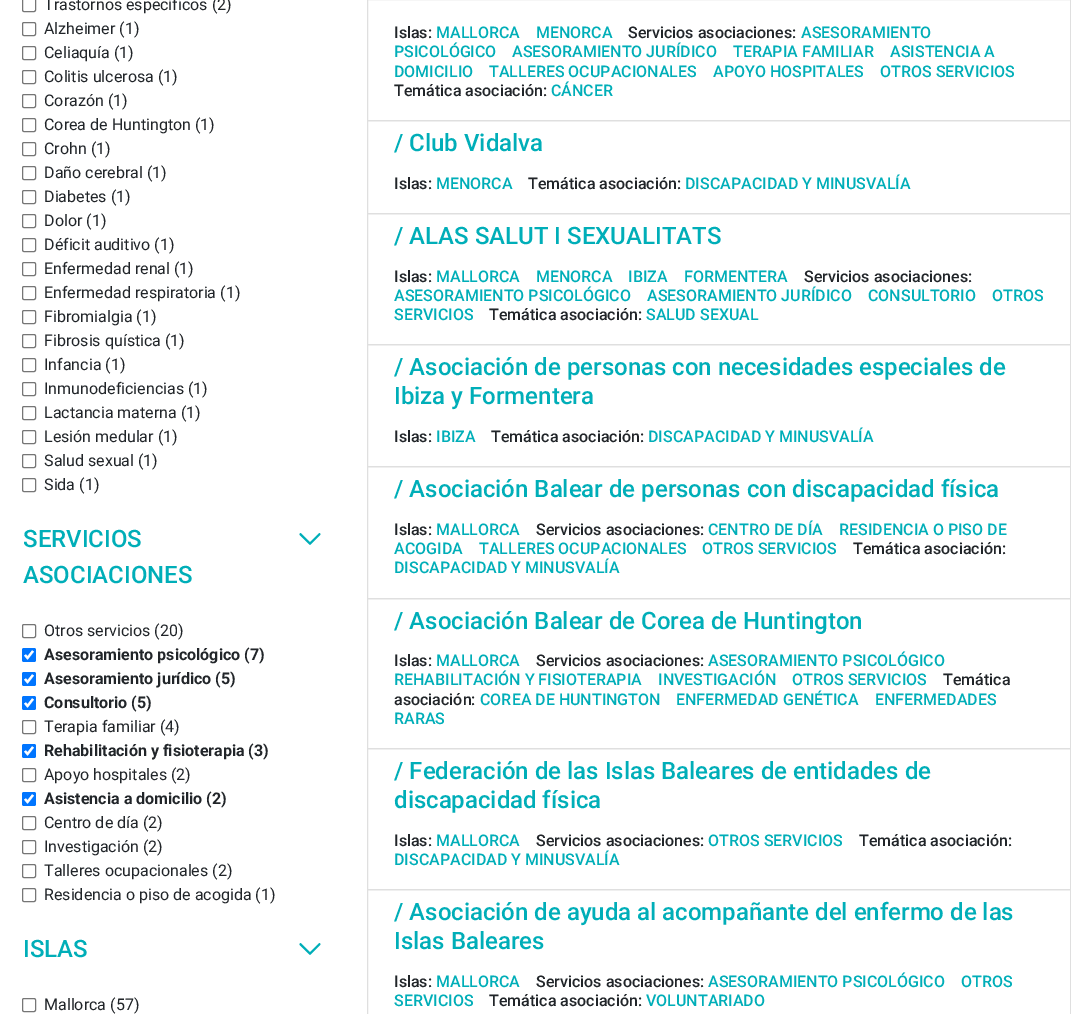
%!PS-Adobe-3.0
%%BoundingBox: 0 0 1071 1014
%%LanguageLevel: 3
%%Pages: 1
%%EndComments
%%BeginProlog
/rrect { 5 dict begin { /r /h /w /y /x } { exch def } forall
  x r add y moveto x w add y 2 copy h add r arct x w add y h add x 1 index r arct
  x y h add x y r arct x y 2 copy exch w add exch r arct closepath end } def
/drawimage { 5 dict begin { /h /w /y /x /name } { exch def } forall
  gsave x y translate w h scale
  w h 8 [w 0 0 h 0 0] name (r) file false 3 colorimage grestore end } def
%%EndProlog
%%BeginSetup
<< /PageSize [1071 1014] >> setpagedevice
%%EndSetup
%%Page: 1 1
0 1014 translate 1 -1 scale
4 setmiterlimit
1 setgray
0 0 1071 1014 rectfill
0.463 setgray
22.5 -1.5 13 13 1.5 rrect stroke
22.5 22.5 13 13 1.5 rrect stroke
22.5 46.5 13 13 1.5 rrect stroke
22.5 70.5 13 13 1.5 rrect stroke
22.5 94.5 13 13 1.5 rrect stroke
22.5 118.5 13 13 1.5 rrect stroke
22.5 142.5 13 13 1.5 rrect stroke
22.5 166.5 13 13 1.5 rrect stroke
22.5 190.5 13 13 1.5 rrect stroke
22.5 214.5 13 13 1.5 rrect stroke
22.5 238.5 13 13 1.5 rrect stroke
22.5 262.5 13 13 1.5 rrect stroke
22.5 286.5 13 13 1.5 rrect stroke
22.5 310.5 13 13 1.5 rrect stroke
22.5 334.5 13 13 1.5 rrect stroke
22.5 358.5 13 13 1.5 rrect stroke
22.5 382.5 13 13 1.5 rrect stroke
22.5 406.5 13 13 1.5 rrect stroke
22.5 430.5 13 13 1.5 rrect stroke
22.5 454.5 13 13 1.5 rrect stroke
22.5 478.5 13 13 1.5 rrect stroke
(images/1.raw) 299 533 22 12 drawimage
22.5 624.5 13 13 1.5 rrect stroke
0 0.459 1 setrgbcolor
22 648 14 14 2 rrect fill
1 setgray
2.2 setlinewidth
newpath 25 655 moveto 27.5 658 lineto 33 651 lineto stroke
0 0.459 1 setrgbcolor
22 672 14 14 2 rrect fill
1 setgray
newpath 25 679 moveto 27.5 682 lineto 33 675 lineto stroke
0 0.459 1 setrgbcolor
22 696 14 14 2 rrect fill
1 setgray
newpath 25 703 moveto 27.5 706 lineto 33 699 lineto stroke
0.463 setgray
1 setlinewidth
22.5 720.5 13 13 1.5 rrect stroke
0 0.459 1 setrgbcolor
22 744 14 14 2 rrect fill
1 setgray
2.2 setlinewidth
newpath 25 751 moveto 27.5 754 lineto 33 747 lineto stroke
0.463 setgray
1 setlinewidth
22.5 768.5 13 13 1.5 rrect stroke
0 0.459 1 setrgbcolor
22 792 14 14 2 rrect fill
1 setgray
2.2 setlinewidth
newpath 25 799 moveto 27.5 802 lineto 33 795 lineto stroke
0.463 setgray
1 setlinewidth
22.5 816.5 13 13 1.5 rrect stroke
22.5 840.5 13 13 1.5 rrect stroke
22.5 864.5 13 13 1.5 rrect stroke
22.5 888.5 13 13 1.5 rrect stroke
(images/1.raw) 299 943 22 12 drawimage
22.5 998.5 13 13 1.5 rrect stroke
0.875 setgray
367.5 -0.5 703 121 rectstroke
367.5 120.5 703 93 rectstroke
367.5 213.5 703 131 rectstroke
367.5 344.5 703 122 rectstroke
367.5 466.5 703 132 rectstroke
367.5 598.5 703 150 rectstroke
367.5 748.5 703 141 rectstroke
367.5 889.5 703 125 rectstroke
/Roboto-Regular [16 0 0 -16 0 0] selectfont
0.129 0.145 0.161 setrgbcolor
44 10 moveto (Trastornos específicos \(2\)) show
44 34 moveto (Alzheimer \(1\)) show
44 58 moveto (Celiaquía \(1\)) show
44 82 moveto (Colitis ulcerosa \(1\)) show
44 106 moveto (Corazón \(1\)) show
44 130 moveto (Corea de Huntington \(1\)) show
44 154 moveto (Crohn \(1\)) show
44 178 moveto (Daño cerebral \(1\)) show
44 202 moveto (Diabetes \(1\)) show
44 226 moveto (Dolor \(1\)) show
44 250 moveto (Déficit auditivo \(1\)) show
44 274 moveto (Enfermedad renal \(1\)) show
44 298 moveto (Enfermedad respiratoria \(1\)) show
44 322 moveto (Fibromialgia \(1\)) show
44 346 moveto (Fibrosis quística \(1\)) show
44 370 moveto (Infancia \(1\)) show
44 394 moveto (Inmunodeficiencias \(1\)) show
44 418 moveto (Lactancia materna \(1\)) show
44 442 moveto (Lesión medular \(1\)) show
44 466 moveto (Salud sexual \(1\)) show
44 490 moveto (Sida \(1\)) show
/Roboto-Medium [24 0 0 -24 0 0] selectfont
0 0.682 0.722 setrgbcolor
23 547 moveto (SERVICIOS) show
23 583 moveto (ASOCIACIONES) show
/Roboto-Regular [16 0 0 -16 0 0] selectfont
0.129 0.145 0.161 setrgbcolor
44 636 moveto (Otros servicios \(20\)) show
/Roboto-Bold [16 0 0 -16 0 0] selectfont
44 660 moveto (Asesoramiento psicológico \(7\)) show
44 684 moveto (Asesoramiento jurídico \(5\)) show
44 708 moveto (Consultorio \(5\)) show
/Roboto-Regular [16 0 0 -16 0 0] selectfont
44 732 moveto (Terapia familiar \(4\)) show
/Roboto-Bold [16 0 0 -16 0 0] selectfont
44 756 moveto (Rehabilitación y fisioterapia \(3\)) show
/Roboto-Regular [16 0 0 -16 0 0] selectfont
44 780 moveto (Apoyo hospitales \(2\)) show
/Roboto-Bold [16 0 0 -16 0 0] selectfont
44 804 moveto (Asistencia a domicilio \(2\)) show
/Roboto-Regular [16 0 0 -16 0 0] selectfont
44 828 moveto (Centro de día \(2\)) show
44 852 moveto (Investigación \(2\)) show
44 876 moveto (Talleres ocupacionales \(2\)) show
44 900 moveto (Residencia o piso de acogida \(1\)) show
/Roboto-Medium [24 0 0 -24 0 0] selectfont
0 0.682 0.722 setrgbcolor
23 957 moveto (ISLAS) show
/Roboto-Regular [16 0 0 -16 0 0] selectfont
0.129 0.145 0.161 setrgbcolor
44 1010 moveto (Mallorca \(57\)) show
/Roboto-Medium [16 0 0 -16 0 0] selectfont
394 38 moveto (Islas:) show
0 0.682 0.722 setrgbcolor
436 38 moveto (MALLORCA) show
536 38 moveto (MENORCA) show
0.129 0.145 0.161 setrgbcolor
628 38 moveto (Servicios asociaciones:) show
0 0.682 0.722 setrgbcolor
801 38 moveto (ASESORAMIENTO) show
394 57 moveto (PSICOLÓGICO) show
512 57 moveto (ASESORAMIENTO JURÍDICO) show
733 57 moveto (TERAPIA FAMILIAR) show
890 57 moveto (ASISTENCIA A) show
394 77 moveto (DOMICILIO) show
489 77 moveto (TALLERES OCUPACIONALES) show
713 77 moveto (APOYO HOSPITALES) show
880 77 moveto (OTROS SERVICIOS) show
0.129 0.145 0.161 setrgbcolor
394 96 moveto (Temática asociación:) show
0 0.682 0.722 setrgbcolor
551 96 moveto (CÁNCER) show
/Roboto-Medium [24 0 0 -24 0 0] selectfont
394 151 moveto (/ Club Vidalva) show
/Roboto-Medium [16 0 0 -16 0 0] selectfont
0.129 0.145 0.161 setrgbcolor
394 189 moveto (Islas:) show
0 0.682 0.722 setrgbcolor
436 189 moveto (MENORCA) show
0.129 0.145 0.161 setrgbcolor
528 189 moveto (Temática asociación:) show
0 0.682 0.722 setrgbcolor
685 189 moveto (DISCAPACIDAD Y MINUSVALÍA) show
/Roboto-Medium [24 0 0 -24 0 0] selectfont
394 244 moveto (/ ALAS SALUT I SEXUALITATS) show
/Roboto-Medium [16 0 0 -16 0 0] selectfont
0.129 0.145 0.161 setrgbcolor
394 282 moveto (Islas:) show
0 0.682 0.722 setrgbcolor
436 282 moveto (MALLORCA) show
536 282 moveto (MENORCA) show
628 282 moveto (IBIZA) show
684 282 moveto (FORMENTERA) show
0.129 0.145 0.161 setrgbcolor
804 282 moveto (Servicios asociaciones:) show
0 0.682 0.722 setrgbcolor
394 301 moveto (ASESORAMIENTO PSICOLÓGICO) show
647 301 moveto (ASESORAMIENTO JURÍDICO) show
868 301 moveto (CONSULTORIO) show
992 301 moveto (OTROS) show
394 320 moveto (SERVICIOS) show
0.129 0.145 0.161 setrgbcolor
489 320 moveto (Temática asociación:) show
0 0.682 0.722 setrgbcolor
646 320 moveto (SALUD SEXUAL) show
/Roboto-Medium [24 0 0 -24 0 0] selectfont
394 375 moveto (/ Asociación de personas con necesidades especiales de) show
394 404 moveto (Ibiza y Formentera) show
/Roboto-Medium [16 0 0 -16 0 0] selectfont
0.129 0.145 0.161 setrgbcolor
394 442 moveto (Islas:) show
0 0.682 0.722 setrgbcolor
436 442 moveto (IBIZA) show
0.129 0.145 0.161 setrgbcolor
491 442 moveto (Temática asociación:) show
0 0.682 0.722 setrgbcolor
648 442 moveto (DISCAPACIDAD Y MINUSVALÍA) show
/Roboto-Medium [24 0 0 -24 0 0] selectfont
394 497 moveto (/ Asociación Balear de personas con discapacidad física) show
/Roboto-Medium [16 0 0 -16 0 0] selectfont
0.129 0.145 0.161 setrgbcolor
394 535 moveto (Islas:) show
0 0.682 0.722 setrgbcolor
436 535 moveto (MALLORCA) show
0.129 0.145 0.161 setrgbcolor
536 535 moveto (Servicios asociaciones:) show
0 0.682 0.722 setrgbcolor
708 535 moveto (CENTRO DE DÍA) show
839 535 moveto (RESIDENCIA O PISO DE) show
394 554 moveto (ACOGIDA) show
479 554 moveto (TALLERES OCUPACIONALES) show
702 554 moveto (OTROS SERVICIOS) show
0.129 0.145 0.161 setrgbcolor
853 554 moveto (Temática asociación:) show
0 0.682 0.722 setrgbcolor
394 573 moveto (DISCAPACIDAD Y MINUSVALÍA) show
/Roboto-Medium [24 0 0 -24 0 0] selectfont
394 629 moveto (/ Asociación Balear de Corea de Huntington) show
/Roboto-Medium [16 0 0 -16 0 0] selectfont
0.129 0.145 0.161 setrgbcolor
394 666 moveto (Islas:) show
0 0.682 0.722 setrgbcolor
436 666 moveto (MALLORCA) show
0.129 0.145 0.161 setrgbcolor
536 666 moveto (Servicios asociaciones:) show
0 0.682 0.722 setrgbcolor
708 666 moveto (ASESORAMIENTO PSICOLÓGICO) show
394 685 moveto (REHABILITACIÓN Y FISIOTERAPIA) show
658 685 moveto (INVESTIGACIÓN) show
792 685 moveto (OTROS SERVICIOS) show
0.129 0.145 0.161 setrgbcolor
943 685 moveto (Temática) show
394 705 moveto (asociación:) show
0 0.682 0.722 setrgbcolor
480 705 moveto (COREA DE HUNTINGTON) show
676 705 moveto (ENFERMEDAD GENÉTICA) show
875 705 moveto (ENFERMEDADES) show
394 724 moveto (RARAS) show
/Roboto-Medium [24 0 0 -24 0 0] selectfont
394 779 moveto (/ Federación de las Islas Baleares de entidades de) show
394 808 moveto (discapacidad física) show
/Roboto-Medium [16 0 0 -16 0 0] selectfont
0.129 0.145 0.161 setrgbcolor
394 846 moveto (Islas:) show
0 0.682 0.722 setrgbcolor
436 846 moveto (MALLORCA) show
0.129 0.145 0.161 setrgbcolor
536 846 moveto (Servicios asociaciones:) show
0 0.682 0.722 setrgbcolor
708 846 moveto (OTROS SERVICIOS) show
0.129 0.145 0.161 setrgbcolor
859 846 moveto (Temática asociación:) show
0 0.682 0.722 setrgbcolor
394 865 moveto (DISCAPACIDAD Y MINUSVALÍA) show
/Roboto-Medium [24 0 0 -24 0 0] selectfont
394 920 moveto (/ Asociación de ayuda al acompañante del enfermo de las) show
394 949 moveto (Islas Baleares) show
/Roboto-Medium [16 0 0 -16 0 0] selectfont
0.129 0.145 0.161 setrgbcolor
394 987 moveto (Islas:) show
0 0.682 0.722 setrgbcolor
436 987 moveto (MALLORCA) show
0.129 0.145 0.161 setrgbcolor
536 987 moveto (Servicios asociaciones:) show
0 0.682 0.722 setrgbcolor
708 987 moveto (ASESORAMIENTO PSICOLÓGICO) show
961 987 moveto (OTROS) show
394 1006 moveto (SERVICIOS) show
0.129 0.145 0.161 setrgbcolor
489 1006 moveto (Temática asociación:) show
0 0.682 0.722 setrgbcolor
646 1006 moveto (VOLUNTARIADO) show
showpage
%%EOF
